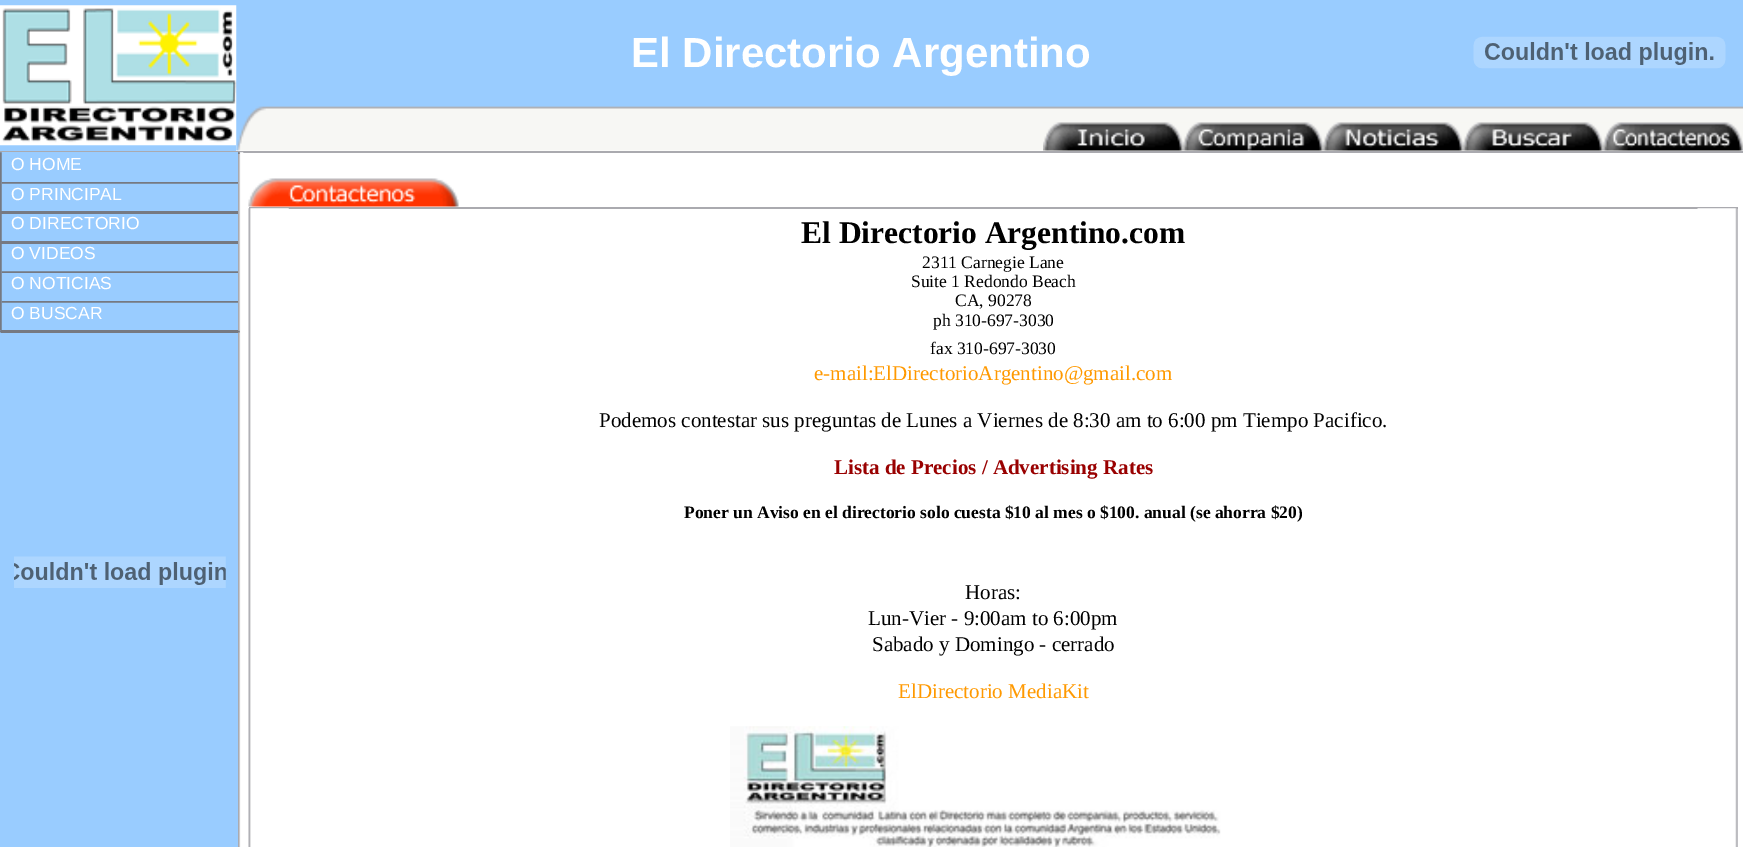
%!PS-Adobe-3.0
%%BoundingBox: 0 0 1743 847
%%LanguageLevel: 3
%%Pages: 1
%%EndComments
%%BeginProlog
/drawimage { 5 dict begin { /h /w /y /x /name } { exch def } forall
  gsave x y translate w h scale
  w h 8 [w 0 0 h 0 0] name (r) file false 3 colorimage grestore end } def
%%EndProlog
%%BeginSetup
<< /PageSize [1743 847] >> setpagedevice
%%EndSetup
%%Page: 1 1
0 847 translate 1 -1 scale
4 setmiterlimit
1 setgray
0 0 1743 847 rectfill
0.6 0.8 1 setrgbcolor
0 0 236 151 rectfill
236 0 1507 105 rectfill
(images/1.raw) 0 5 237 141 drawimage
(images/2.raw) 1473 36 253 33 drawimage
(images/3.raw) 236 105 30 46 drawimage
(images/4.raw) 266 105 1477 46 drawimage
(images/5.raw) 1043 122 140 29 drawimage
(images/6.raw) 1183 122 140 29 drawimage
(images/7.raw) 1323 122 140 29 drawimage
(images/8.raw) 1463 122 140 29 drawimage
(images/9.raw) 1603 122 140 29 drawimage
0.667 0.667 0.686 setrgbcolor
0 151 1743 2 rectfill
0.6 0.8 1 setrgbcolor
0 152 238 695 rectfill
(images/10.raw) 0 152 2 2 drawimage
(images/18.raw) 238 152 6 695 drawimage
(images/11.raw) 238 152 2 2 drawimage
(images/12.raw) 0 154 2 177 drawimage
(images/13.raw) 1 182 237 2 drawimage
0.463 0.475 0.506 setrgbcolor
1 211 237 3 rectfill
1 241 237 3 rectfill
(images/14.raw) 1 271 237 2 drawimage
(images/13.raw) 1 301 237 2 drawimage
(images/15.raw) 0 330 1 3 drawimage
1 330 237 3 rectfill
(images/16.raw) 238 330 2 3 drawimage
(images/17.raw) 14 556 212 32 drawimage
(images/19.raw) 248 178 211 29 drawimage
0.667 0.667 0.686 setrgbcolor
249 207 1489 2 rectfill
(images/20.raw) 248 208 41 639 drawimage
(images/21.raw) 730 726 491 121 drawimage
(images/22.raw) 1697 208 41 639 drawimage
/LiberationSans-Bold [42 0 0 -42 0 0] selectfont
1 setgray
631 67 moveto (El Directorio Argentino) show
/LiberationSans-Regular [17.5 0 0 -17.5 0 0] selectfont
11 170 moveto (O HOME) show
11 200 moveto (O PRINCIPAL) show
11 229 moveto (O DIRECTORIO) show
11 259 moveto (O VIDEOS) show
11 289 moveto (O NOTICIAS) show
11 319 moveto (O BUSCAR) show
/LiberationSerif-Bold [31.5 0 0 -31.5 0 0] selectfont
0 setgray
801 243 moveto (El Directorio Argentino.com) show
/LiberationSerif-Regular [17.5 0 0 -17.5 0 0] selectfont
922 268 moveto (2311 Carnegie Lane) show
911 287 moveto (Suite 1 Redondo Beach) show
955 306 moveto (CA, 90278) show
933 326 moveto (ph 310-697-3030) show
930 354 moveto (fax 310-697-3030) show
/LiberationSerif-Regular [21 0 0 -21 0 0] selectfont
1 0.6 0 setrgbcolor
814 380 moveto (e-mail:ElDirectorioArgentino@gmail.com) show
0 setgray
599 427 moveto (Podemos contestar sus preguntas de Lunes a Viernes de 8:30 am to 6:00 pm Tiempo Pacifico.) show
/LiberationSerif-Bold [21 0 0 -21 0 0] selectfont
0.6 0 0 setrgbcolor
834 474 moveto (Lista de Precios / Advertising Rates) show
/LiberationSerif-Bold [17.5 0 0 -17.5 0 0] selectfont
0 setgray
684 518 moveto (Poner un Aviso en el directorio solo cuesta $10 al mes o $100. anual \(se ahorra $20\)) show
/LiberationSerif-Regular [21 0 0 -21 0 0] selectfont
965 599 moveto (Horas:) show
868 625 moveto (Lun-Vier - 9:00am to 6:00pm) show
872 651 moveto (Sabado y Domingo - cerrado) show
1 0.6 0 setrgbcolor
898 698 moveto (ElDirectorio MediaKit) show
showpage
%%EOF
